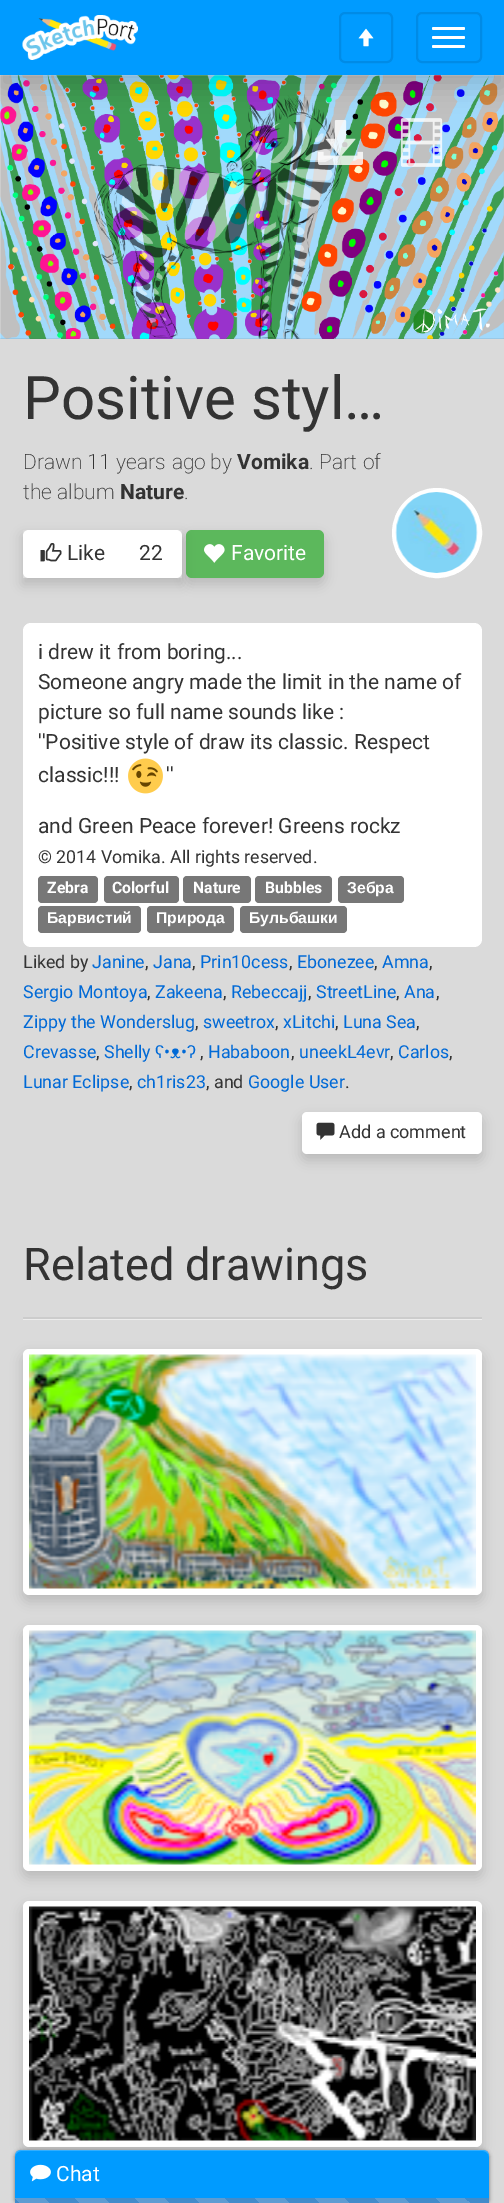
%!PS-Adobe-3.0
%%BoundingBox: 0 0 504 2203
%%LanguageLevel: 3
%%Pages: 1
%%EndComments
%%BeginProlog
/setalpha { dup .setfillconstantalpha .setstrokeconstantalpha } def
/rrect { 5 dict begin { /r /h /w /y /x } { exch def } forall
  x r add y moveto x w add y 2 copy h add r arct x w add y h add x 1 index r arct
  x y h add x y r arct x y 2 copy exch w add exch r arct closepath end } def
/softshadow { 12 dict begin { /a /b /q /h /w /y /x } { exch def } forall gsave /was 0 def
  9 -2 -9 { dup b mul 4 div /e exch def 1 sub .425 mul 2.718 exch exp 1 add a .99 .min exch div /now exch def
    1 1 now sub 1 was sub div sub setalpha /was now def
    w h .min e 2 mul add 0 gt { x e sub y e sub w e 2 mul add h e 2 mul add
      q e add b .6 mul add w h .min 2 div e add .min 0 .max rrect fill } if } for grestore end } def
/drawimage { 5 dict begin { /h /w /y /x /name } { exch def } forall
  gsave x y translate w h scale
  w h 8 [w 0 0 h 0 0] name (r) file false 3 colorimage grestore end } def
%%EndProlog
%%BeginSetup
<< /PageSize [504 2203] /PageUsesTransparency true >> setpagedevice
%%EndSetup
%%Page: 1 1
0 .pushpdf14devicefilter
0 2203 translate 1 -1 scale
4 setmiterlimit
0.855 setgray
0 0 504 2203 rectfill
(images/3.raw) 0 75 504 264 drawimage
(images/4.raw) 318 120 45 45 drawimage
(images/5.raw) 400 118 43 49 drawimage
0 setgray
0 12 504 75 0 12 0.15 softshadow
0 0.608 1 setrgbcolor
0 0 504 75 rectfill
(images/1.raw) 22 15 116 45 drawimage
0 0.545 0.902 setrgbcolor
2 setlinewidth
340 13 52 49 5 rrect stroke
(images/2.raw) 358 28 16 19 drawimage
417 13 64 49 5 rrect stroke
1 setgray
432 27 33 3 1.5 rrect fill
432 36 33 3 1.5 rrect fill
432 45 33 3 1.5 rrect fill
0 setgray
186 536 138 48 6 6 0.15 softshadow
0.361 0.722 0.361 setrgbcolor
186 530 138 48 6 rrect fill
gsave
newpath 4 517 moveto 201 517 lineto 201 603 lineto 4 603 lineto closepath 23 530 moveto 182 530 lineto 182 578 lineto 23 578 lineto closepath eoclip newpath
0 setgray
23 536 159 48 0 6 0.15 softshadow
grestore
1 setgray
newpath 29 530 moveto 123 530 lineto 123 578 lineto 29 578 lineto 25.5 578 23 575.5 23 572 curveto 23 536 lineto 23 532.5 25.5 530 29 530 curveto closepath fill
(images/6.raw) 40 543 22 19 drawimage
newpath 122 530 moveto 176 530 lineto 179.5 530 182 532.5 182 536 curveto 182 572 lineto 182 575.5 179.5 578 176 578 curveto 122 578 lineto closepath fill
(images/7.raw) 204 544 21 19 drawimage
newpath 437 533 44 0 360 arc closepath gsave fill grestore
stroke
(images/8.raw) 395 492 83 81 drawimage
23 623 459 324 8 rrect fill
(images/9.raw) 128 758 35 36 drawimage
0.467 setgray
38 876 60 27 4 rrect fill
104 876 75 27 4 rrect fill
183 876 68 27 4 rrect fill
255 876 77 27 4 rrect fill
338 876 66 27 4 rrect fill
38 906 103 27 4 rrect fill
147 906 87 27 4 rrect fill
240 906 107 27 4 rrect fill
0 setgray
302 1118 180 42 5 6 0.15 softshadow
1 setgray
302 1112 180 42 5 rrect fill
(images/10.raw) 316 1122 19 18 drawimage
0.929 setgray
newpath 23 1318 moveto 23 1320 lineto 482 1320 lineto 482 1215 lineto 482 1318 lineto closepath fill
0.8 setgray
23 1317 459 2 rectfill
0 setgray
23 1355 459 246 6 6 0.15 softshadow
1 setgray
23 1349 459 246 6 rrect fill
(images/11.raw) 29 1354 447 235 drawimage
0 setgray
23 1631 459 246 6 6 0.15 softshadow
1 setgray
23 1625 459 246 6 rrect fill
(images/12.raw) 29 1630 447 235 drawimage
0 setgray
23 1907 459 246 6 6 0.15 softshadow
1 setgray
23 1901 459 246 6 rrect fill
(images/13.raw) 29 1906 447 235 drawimage
0 setgray
15 2151 474 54 6 2 0.5 softshadow
0 0.608 1 setrgbcolor
newpath 21 2150 moveto 483 2150 lineto 486.5 2150 489 2152.5 489 2156 curveto 489 2198 lineto 15 2198 lineto 15 2156 lineto 15 2152.5 17.5 2150 21 2150 curveto closepath fill
0.2 setalpha
1 setgray
newpath 21 2151 moveto 483 2151 lineto 486 2151 489 2154 489 2157 curveto 489 2153 487 2150 483 2150 curveto 21 2150 lineto 17 2150 15 2153 15 2157 curveto 15 2154 18 2151 21 2151 curveto closepath fill
1 setalpha
(images/14.raw) 30 2164 21 18 drawimage
gsave newpath 15 2198 moveto 75 2198 lineto 75 2203 lineto 15 2203 lineto closepath clip newpath
<< /ShadingType 2 /ColorSpace /DeviceRGB /Coords [15 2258 75 2198] /Extend [true true] /Function << /FunctionType 3 /Domain [0 1] /Functions [<< /FunctionType 2 /Domain [0 1] /C0 [0.369 0.612 0.824] /C1 [0.369 0.612 0.824] /N 1 >> << /FunctionType 2 /Domain [0 1] /C0 [0.259 0.545 0.792] /C1 [0.259 0.545 0.792] /N 1 >> << /FunctionType 2 /Domain [0 1] /C0 [0.369 0.612 0.824] /C1 [0.369 0.612 0.824] /N 1 >> << /FunctionType 2 /Domain [0 1] /C0 [0.259 0.545 0.792] /C1 [0.259 0.545 0.792] /N 1 >>] /Bounds [0.25 0.5 0.75] /Encode [0 1 0 1 0 1 0 1] >> >> shfill grestore
gsave newpath 75 2198 moveto 135 2198 lineto 135 2203 lineto 75 2203 lineto closepath clip newpath
<< /ShadingType 2 /ColorSpace /DeviceRGB /Coords [75 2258 135 2198] /Extend [true true] /Function << /FunctionType 3 /Domain [0 1] /Functions [<< /FunctionType 2 /Domain [0 1] /C0 [0.369 0.612 0.824] /C1 [0.369 0.612 0.824] /N 1 >> << /FunctionType 2 /Domain [0 1] /C0 [0.259 0.545 0.792] /C1 [0.259 0.545 0.792] /N 1 >> << /FunctionType 2 /Domain [0 1] /C0 [0.369 0.612 0.824] /C1 [0.369 0.612 0.824] /N 1 >> << /FunctionType 2 /Domain [0 1] /C0 [0.259 0.545 0.792] /C1 [0.259 0.545 0.792] /N 1 >>] /Bounds [0.25 0.5 0.75] /Encode [0 1 0 1 0 1 0 1] >> >> shfill grestore
gsave newpath 135 2198 moveto 195 2198 lineto 195 2203 lineto 135 2203 lineto closepath clip newpath
<< /ShadingType 2 /ColorSpace /DeviceRGB /Coords [135 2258 195 2198] /Extend [true true] /Function << /FunctionType 3 /Domain [0 1] /Functions [<< /FunctionType 2 /Domain [0 1] /C0 [0.369 0.612 0.824] /C1 [0.369 0.612 0.824] /N 1 >> << /FunctionType 2 /Domain [0 1] /C0 [0.259 0.545 0.792] /C1 [0.259 0.545 0.792] /N 1 >> << /FunctionType 2 /Domain [0 1] /C0 [0.369 0.612 0.824] /C1 [0.369 0.612 0.824] /N 1 >> << /FunctionType 2 /Domain [0 1] /C0 [0.259 0.545 0.792] /C1 [0.259 0.545 0.792] /N 1 >>] /Bounds [0.25 0.5 0.75] /Encode [0 1 0 1 0 1 0 1] >> >> shfill grestore
gsave newpath 195 2198 moveto 255 2198 lineto 255 2203 lineto 195 2203 lineto closepath clip newpath
<< /ShadingType 2 /ColorSpace /DeviceRGB /Coords [195 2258 255 2198] /Extend [true true] /Function << /FunctionType 3 /Domain [0 1] /Functions [<< /FunctionType 2 /Domain [0 1] /C0 [0.369 0.612 0.824] /C1 [0.369 0.612 0.824] /N 1 >> << /FunctionType 2 /Domain [0 1] /C0 [0.259 0.545 0.792] /C1 [0.259 0.545 0.792] /N 1 >> << /FunctionType 2 /Domain [0 1] /C0 [0.369 0.612 0.824] /C1 [0.369 0.612 0.824] /N 1 >> << /FunctionType 2 /Domain [0 1] /C0 [0.259 0.545 0.792] /C1 [0.259 0.545 0.792] /N 1 >>] /Bounds [0.25 0.5 0.75] /Encode [0 1 0 1 0 1 0 1] >> >> shfill grestore
gsave newpath 255 2198 moveto 315 2198 lineto 315 2203 lineto 255 2203 lineto closepath clip newpath
<< /ShadingType 2 /ColorSpace /DeviceRGB /Coords [255 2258 315 2198] /Extend [true true] /Function << /FunctionType 3 /Domain [0 1] /Functions [<< /FunctionType 2 /Domain [0 1] /C0 [0.369 0.612 0.824] /C1 [0.369 0.612 0.824] /N 1 >> << /FunctionType 2 /Domain [0 1] /C0 [0.259 0.545 0.792] /C1 [0.259 0.545 0.792] /N 1 >> << /FunctionType 2 /Domain [0 1] /C0 [0.369 0.612 0.824] /C1 [0.369 0.612 0.824] /N 1 >> << /FunctionType 2 /Domain [0 1] /C0 [0.259 0.545 0.792] /C1 [0.259 0.545 0.792] /N 1 >>] /Bounds [0.25 0.5 0.75] /Encode [0 1 0 1 0 1 0 1] >> >> shfill grestore
gsave newpath 315 2198 moveto 375 2198 lineto 375 2203 lineto 315 2203 lineto closepath clip newpath
<< /ShadingType 2 /ColorSpace /DeviceRGB /Coords [315 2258 375 2198] /Extend [true true] /Function << /FunctionType 3 /Domain [0 1] /Functions [<< /FunctionType 2 /Domain [0 1] /C0 [0.369 0.612 0.824] /C1 [0.369 0.612 0.824] /N 1 >> << /FunctionType 2 /Domain [0 1] /C0 [0.259 0.545 0.792] /C1 [0.259 0.545 0.792] /N 1 >> << /FunctionType 2 /Domain [0 1] /C0 [0.369 0.612 0.824] /C1 [0.369 0.612 0.824] /N 1 >> << /FunctionType 2 /Domain [0 1] /C0 [0.259 0.545 0.792] /C1 [0.259 0.545 0.792] /N 1 >>] /Bounds [0.25 0.5 0.75] /Encode [0 1 0 1 0 1 0 1] >> >> shfill grestore
gsave newpath 375 2198 moveto 435 2198 lineto 435 2203 lineto 375 2203 lineto closepath clip newpath
<< /ShadingType 2 /ColorSpace /DeviceRGB /Coords [375 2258 435 2198] /Extend [true true] /Function << /FunctionType 3 /Domain [0 1] /Functions [<< /FunctionType 2 /Domain [0 1] /C0 [0.369 0.612 0.824] /C1 [0.369 0.612 0.824] /N 1 >> << /FunctionType 2 /Domain [0 1] /C0 [0.259 0.545 0.792] /C1 [0.259 0.545 0.792] /N 1 >> << /FunctionType 2 /Domain [0 1] /C0 [0.369 0.612 0.824] /C1 [0.369 0.612 0.824] /N 1 >> << /FunctionType 2 /Domain [0 1] /C0 [0.259 0.545 0.792] /C1 [0.259 0.545 0.792] /N 1 >>] /Bounds [0.25 0.5 0.75] /Encode [0 1 0 1 0 1 0 1] >> >> shfill grestore
gsave newpath 435 2198 moveto 489 2198 lineto 489 2203 lineto 435 2203 lineto closepath clip newpath
<< /ShadingType 2 /ColorSpace /DeviceRGB /Coords [435 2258 495 2198] /Extend [true true] /Function << /FunctionType 3 /Domain [0 1] /Functions [<< /FunctionType 2 /Domain [0 1] /C0 [0.369 0.612 0.824] /C1 [0.369 0.612 0.824] /N 1 >> << /FunctionType 2 /Domain [0 1] /C0 [0.259 0.545 0.792] /C1 [0.259 0.545 0.792] /N 1 >> << /FunctionType 2 /Domain [0 1] /C0 [0.369 0.612 0.824] /C1 [0.369 0.612 0.824] /N 1 >> << /FunctionType 2 /Domain [0 1] /C0 [0.259 0.545 0.792] /C1 [0.259 0.545 0.792] /N 1 >>] /Bounds [0.25 0.5 0.75] /Encode [0 1 0 1 0 1 0 1] >> >> shfill grestore
/Roboto-Regular [60 0 0 -60 0 0] selectfont
0.2 setgray
23 419 moveto (Positive styl…) show
/Roboto-ExtraLight [21 0 0 -21 0 0] selectfont
23 469 moveto (Drawn) show
87 469 moveto 1 0 32 (11 years ago) widthshow
210 469 moveto (by) show
/Roboto-Bold [21 0 0 -21 0 0] selectfont
237 469 moveto (Vomika) show
/Roboto-ExtraLight [21 0 0 -21 0 0] selectfont
309 469 moveto (.) show
319 469 moveto 1 0 32 (Part of) widthshow
23 499 moveto (the album) show
/Roboto-Bold [21 0 0 -21 0 0] selectfont
120 499 moveto (Nature) show
/Roboto-ExtraLight [21 0 0 -21 0 0] selectfont
184 499 moveto (.) show
/Roboto-Regular [21 0 0 -21 0 0] selectfont
67 560 moveto (Like) show
139 560 moveto (22) show
1 setgray
231 560 moveto (Favorite) show
0.2 setgray
38 659 moveto (i drew it from boring...) show
38 689 moveto (Someone angry made the limit in the name of) show
38 719 moveto (picture so full name sounds like :) show
38 749 moveto (''Positive style of draw its classic. Respect) show
38 782 moveto (classic!!!) show
166 782 moveto ('') show
38 833 moveto (and Green Peace forever! Greens rockz) show
/Roboto-Regular [17.8 0 0 -17.8 0 0] selectfont
38 863 moveto (© 2014 Vomika. All rights reserved.) show
/Roboto-Bold [15.75 0 0 -15.75 0 0] selectfont
1 setgray
47 893 moveto (Zebra) show
112 893 moveto (Colorful) show
193 893 moveto (Nature) show
265 893 moveto (Bubbles) show
/LiberationSans-Bold [15.75 0 0 -15.75 0 0] selectfont
347 893 moveto (Зебра) show
47 923 moveto (Барвистий) show
156 923 moveto (Природа) show
249 923 moveto (Бульбашки) show
/Roboto-Regular [17.8 0 0 -17.8 0 0] selectfont
0.2 setgray
23 968 moveto (Liked by) show
0 0.412 0.839 setrgbcolor
92 968 moveto (Janine) show
0.2 setgray
145 968 moveto (,) show
0 0.412 0.839 setrgbcolor
153 968 moveto (Jana) show
0.2 setgray
192 968 moveto (,) show
0 0.412 0.839 setrgbcolor
200 968 moveto (Prin10cess) show
0.2 setgray
289 968 moveto (,) show
0 0.412 0.839 setrgbcolor
297 968 moveto (Ebonezee) show
0.2 setgray
374 968 moveto (,) show
0 0.412 0.839 setrgbcolor
382 968 moveto (Amna) show
0.2 setgray
429 968 moveto (,) show
0 0.412 0.839 setrgbcolor
23 998 moveto (Sergio Montoya) show
0.2 setgray
147 998 moveto (,) show
0 0.412 0.839 setrgbcolor
155 998 moveto (Zakeena) show
0.2 setgray
223 998 moveto (,) show
0 0.412 0.839 setrgbcolor
231 998 moveto (Rebeccajj) show
0.2 setgray
308 998 moveto (,) show
0 0.412 0.839 setrgbcolor
316 998 moveto (StreetLine) show
0.2 setgray
396 998 moveto (,) show
0 0.412 0.839 setrgbcolor
404 998 moveto (Ana) show
0.2 setgray
436 998 moveto (,) show
0 0.412 0.839 setrgbcolor
23 1028 moveto (Zippy the Wonderslug) show
0.2 setgray
195 1028 moveto (,) show
0 0.412 0.839 setrgbcolor
203 1028 moveto (sweetrox) show
0.2 setgray
275 1028 moveto (,) show
0 0.412 0.839 setrgbcolor
283 1028 moveto (xLitchi) show
0.2 setgray
335 1028 moveto (,) show
0 0.412 0.839 setrgbcolor
343 1028 moveto (Luna Sea) show
0.2 setgray
416 1028 moveto (,) show
0 0.412 0.839 setrgbcolor
23 1058 moveto (Crevasse) show
104 1058 moveto (Shelly) show
/LiberationSans-Regular [17.8 0 0 -17.8 0 0] selectfont
155 1058 moveto (ʕ) show
/Roboto-Regular [17.8 0 0 -17.8 0 0] selectfont
164 1058 moveto (•) show
/LiberationSans-Regular [17.8 0 0 -17.8 0 0] selectfont
170 1058 moveto (ᴥ) show
/Roboto-Regular [17.8 0 0 -17.8 0 0] selectfont
181 1058 moveto (•) show
/LiberationSans-Regular [17.8 0 0 -17.8 0 0] selectfont
187 1058 moveto (ʔ) show
/Roboto-Regular [17.8 0 0 -17.8 0 0] selectfont
208 1058 moveto (Hababoon) show
299 1058 moveto (uneekL4evr) show
398 1058 moveto (Carlos) show
0.2 setgray
96 1058 moveto (,) show
200 1058 moveto (,) show
291 1058 moveto (,) show
390 1058 moveto (,) show
449 1058 moveto (,) show
0 0.412 0.839 setrgbcolor
23 1088 moveto (Lunar Eclipse) show
0.2 setgray
129 1088 moveto (,) show
0 0.412 0.839 setrgbcolor
137 1088 moveto (ch1ris23) show
0.2 setgray
206 1088 moveto (, and) show
0 0.412 0.839 setrgbcolor
248 1088 moveto (Google User) show
0.2 setgray
345 1088 moveto (.) show
/Roboto-Regular [18 0 0 -18 0 0] selectfont
339 1138 moveto (Add a comment) show
/Roboto-Regular [45 0 0 -45 0 0] selectfont
23 1280 moveto (Related drawings) show
/Roboto-Regular [21 0 0 -21 0 0] selectfont
1 setgray
56 2181 moveto (Chat) show
.poppdf14devicefilter showpage
%%EOF
